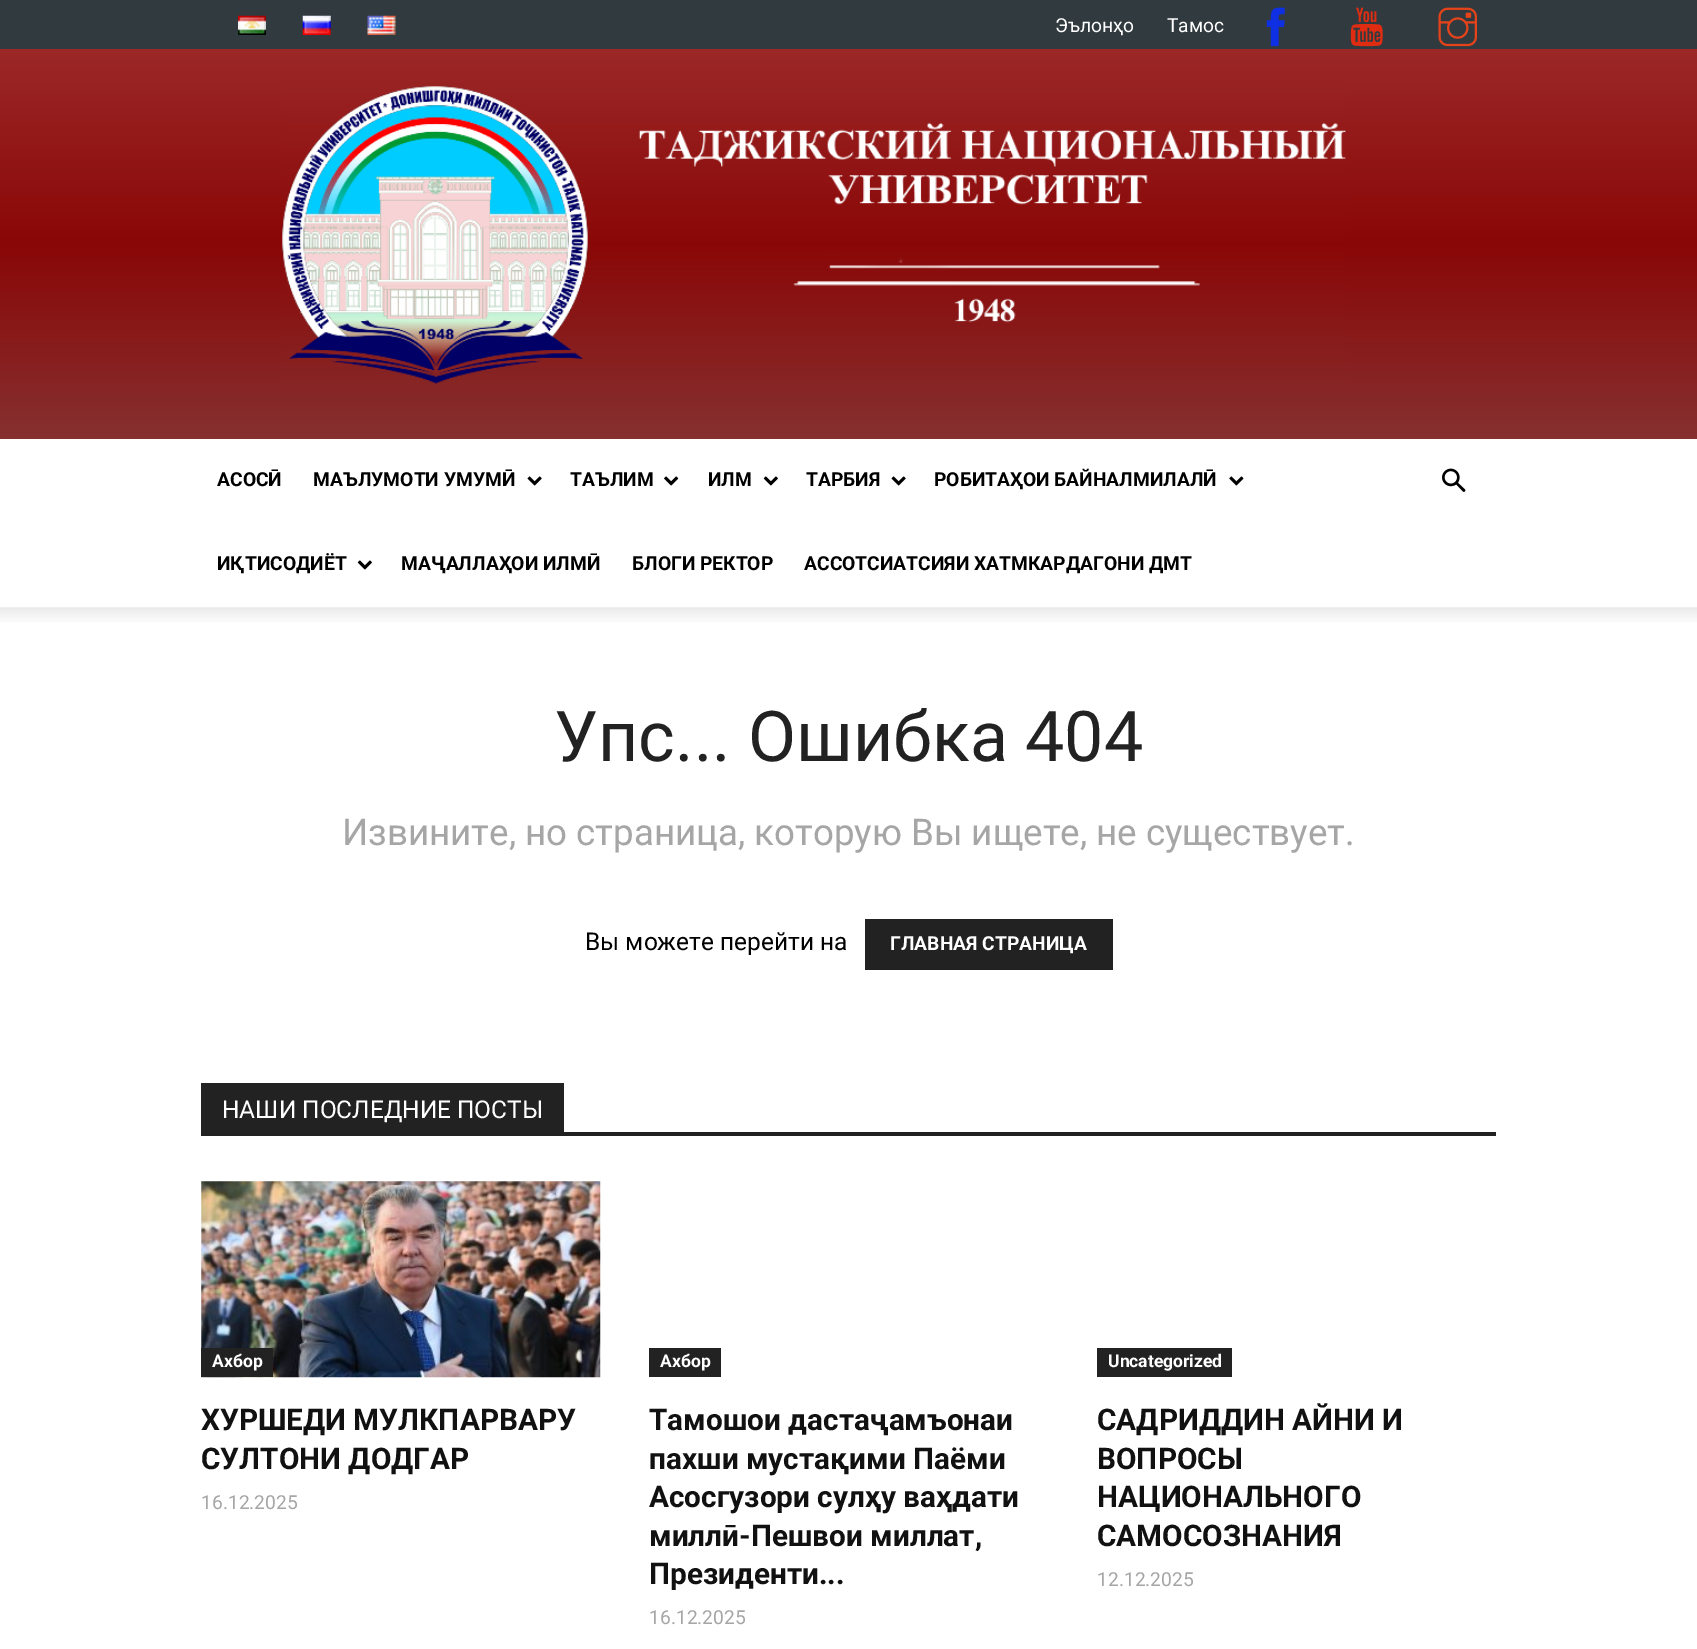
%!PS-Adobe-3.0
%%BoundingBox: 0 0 1697 1649
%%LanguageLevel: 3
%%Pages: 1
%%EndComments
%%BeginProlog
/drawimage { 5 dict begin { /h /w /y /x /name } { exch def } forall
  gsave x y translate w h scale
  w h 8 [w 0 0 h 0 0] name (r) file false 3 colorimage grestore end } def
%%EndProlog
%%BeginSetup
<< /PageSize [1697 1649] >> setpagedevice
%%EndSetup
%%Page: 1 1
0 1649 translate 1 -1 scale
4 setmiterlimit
1 setgray
0 0 1697 1649 rectfill
0.192 0.227 0.247 setrgbcolor
0 0 1697 49 rectfill
(images/1.raw) 238 15 28 20 drawimage
(images/2.raw) 302 15 29 20 drawimage
(images/3.raw) 367 15 29 20 drawimage
(images/4.raw) 1266 7 19 40 drawimage
(images/5.raw) 1350 7 33 40 drawimage
(images/6.raw) 1438 7 39 40 drawimage
gsave newpath 0 49 moveto 1697 49 lineto 1697 439 lineto 0 439 lineto closepath clip newpath
<< /ShadingType 2 /ColorSpace /DeviceRGB /Coords [849 439 849 49] /Extend [true true] /Function << /FunctionType 3 /Domain [0 1] /Functions [<< /FunctionType 2 /Domain [0 1] /C0 [0.525 0.188 0.188] /C1 [0.541 0.027 0.027] /N 1 >> << /FunctionType 2 /Domain [0 1] /C0 [0.541 0.027 0.027] /C1 [0.612 0.157 0.157] /N 1 >>] /Bounds [0.5] /Encode [0 1 0 1] >> >> shfill grestore
(images/7.raw) 282 86 1064 298 drawimage
(images/8.raw) 527 476 15 10 drawimage
(images/9.raw) 664 476 15 10 drawimage
(images/10.raw) 763 476 15 10 drawimage
(images/8.raw) 891 476 15 10 drawimage
(images/11.raw) 1229 476 15 10 drawimage
(images/10.raw) 357 560 15 10 drawimage
(images/12.raw) 1442 468 24 24 drawimage
(images/13.raw) 0 607 1697 15 drawimage
0.133 setgray
865 919 248 51 rectfill
0.129 setgray
201 1132 1295 4 rectfill
0.133 setgray
201 1083 363 49 rectfill
(images/14.raw) 201 1181 400 197 drawimage
201 1348 72 29 rectfill
649 1348 72 29 rectfill
1097 1348 135 29 rectfill
/Roboto-Regular [19.25 0 0 -19.25 0 0] selectfont
1 setgray
1055 32 moveto (Эълонҳо) show
1167 32 moveto (Тамос) show
/Roboto-Bold [19.25 0 0 -19.25 0 0] selectfont
0 setgray
217 486 moveto (АСОСӢ) show
313 486 moveto (МАЪЛУМОТИ УМУМӢ) show
570 486 moveto (ТАЪЛИМ) show
708 486 moveto (ИЛМ) show
806 486 moveto (ТАРБИЯ) show
934 486 moveto (РОБИТАҲОИ БАЙНАЛМИЛАЛӢ) show
217 570 moveto (ИҚТИСОДИЁТ) show
401 570 moveto (МАҶАЛЛАҲОИ ИЛМӢ) show
632 570 moveto (БЛОГИ РЕКТОР) show
804 570 moveto (АССОТСИАТСИЯИ ХАТМКАРДАГОНИ ДМТ) show
/Roboto-Regular [70 0 0 -70 0 0] selectfont
0.133 setgray
554 761 moveto (Упс... Ошибка 404) show
/Roboto-Regular [36.75 0 0 -36.75 0 0] selectfont
0.651 setgray
342 845 moveto (Извините, но страница, которую Вы ищете, не существует.) show
/Roboto-Regular [24.5 0 0 -24.5 0 0] selectfont
0 setgray
585 950 moveto (Вы можете перейти на) show
/Roboto-Bold [19.25 0 0 -19.25 0 0] selectfont
1 setgray
890 950 moveto (ГЛАВНАЯ СТРАНИЦА) show
/Roboto-Regular [24.5 0 0 -24.5 0 0] selectfont
222 1118 moveto (НАШИ ПОСЛЕДНИЕ ПОСТЫ) show
/Roboto-Bold [17.5 0 0 -17.5 0 0] selectfont
212 1367 moveto (Ахбор) show
/Roboto-Bold [29.75 0 0 -29.75 0 0] selectfont
0.067 setgray
201 1430 moveto (ХУРШЕДИ МУЛКПАРВАРУ) show
201 1469 moveto (СУЛТОНИ ДОДГАР) show
/Roboto-Regular [19.25 0 0 -19.25 0 0] selectfont
0.651 setgray
201 1509 moveto (16.12.2025) show
/Roboto-Bold [17.5 0 0 -17.5 0 0] selectfont
1 setgray
660 1367 moveto (Ахбор) show
/Roboto-Bold [29.75 0 0 -29.75 0 0] selectfont
0.067 setgray
649 1430 moveto (Тамошои дастаҷамъонаи) show
649 1469 moveto (пахши мустақими Паёми) show
649 1507 moveto (Асосгузори сулҳу ваҳдати) show
649 1546 moveto (миллӣ-Пешвои миллат,) show
649 1584 moveto (Президенти...) show
/Roboto-Regular [19.25 0 0 -19.25 0 0] selectfont
0.651 setgray
649 1624 moveto (16.12.2025) show
/Roboto-Bold [17.5 0 0 -17.5 0 0] selectfont
1 setgray
1108 1367 moveto (Uncategorized) show
/Roboto-Bold [29.75 0 0 -29.75 0 0] selectfont
0.067 setgray
1097 1430 moveto (САДРИДДИН АЙНИ И) show
1097 1469 moveto (ВОПРОСЫ) show
1097 1507 moveto (НАЦИОНАЛЬНОГО) show
1097 1546 moveto (САМОСОЗНАНИЯ) show
/Roboto-Regular [19.25 0 0 -19.25 0 0] selectfont
0.651 setgray
1097 1586 moveto (12.12.2025) show
showpage
%%EOF
